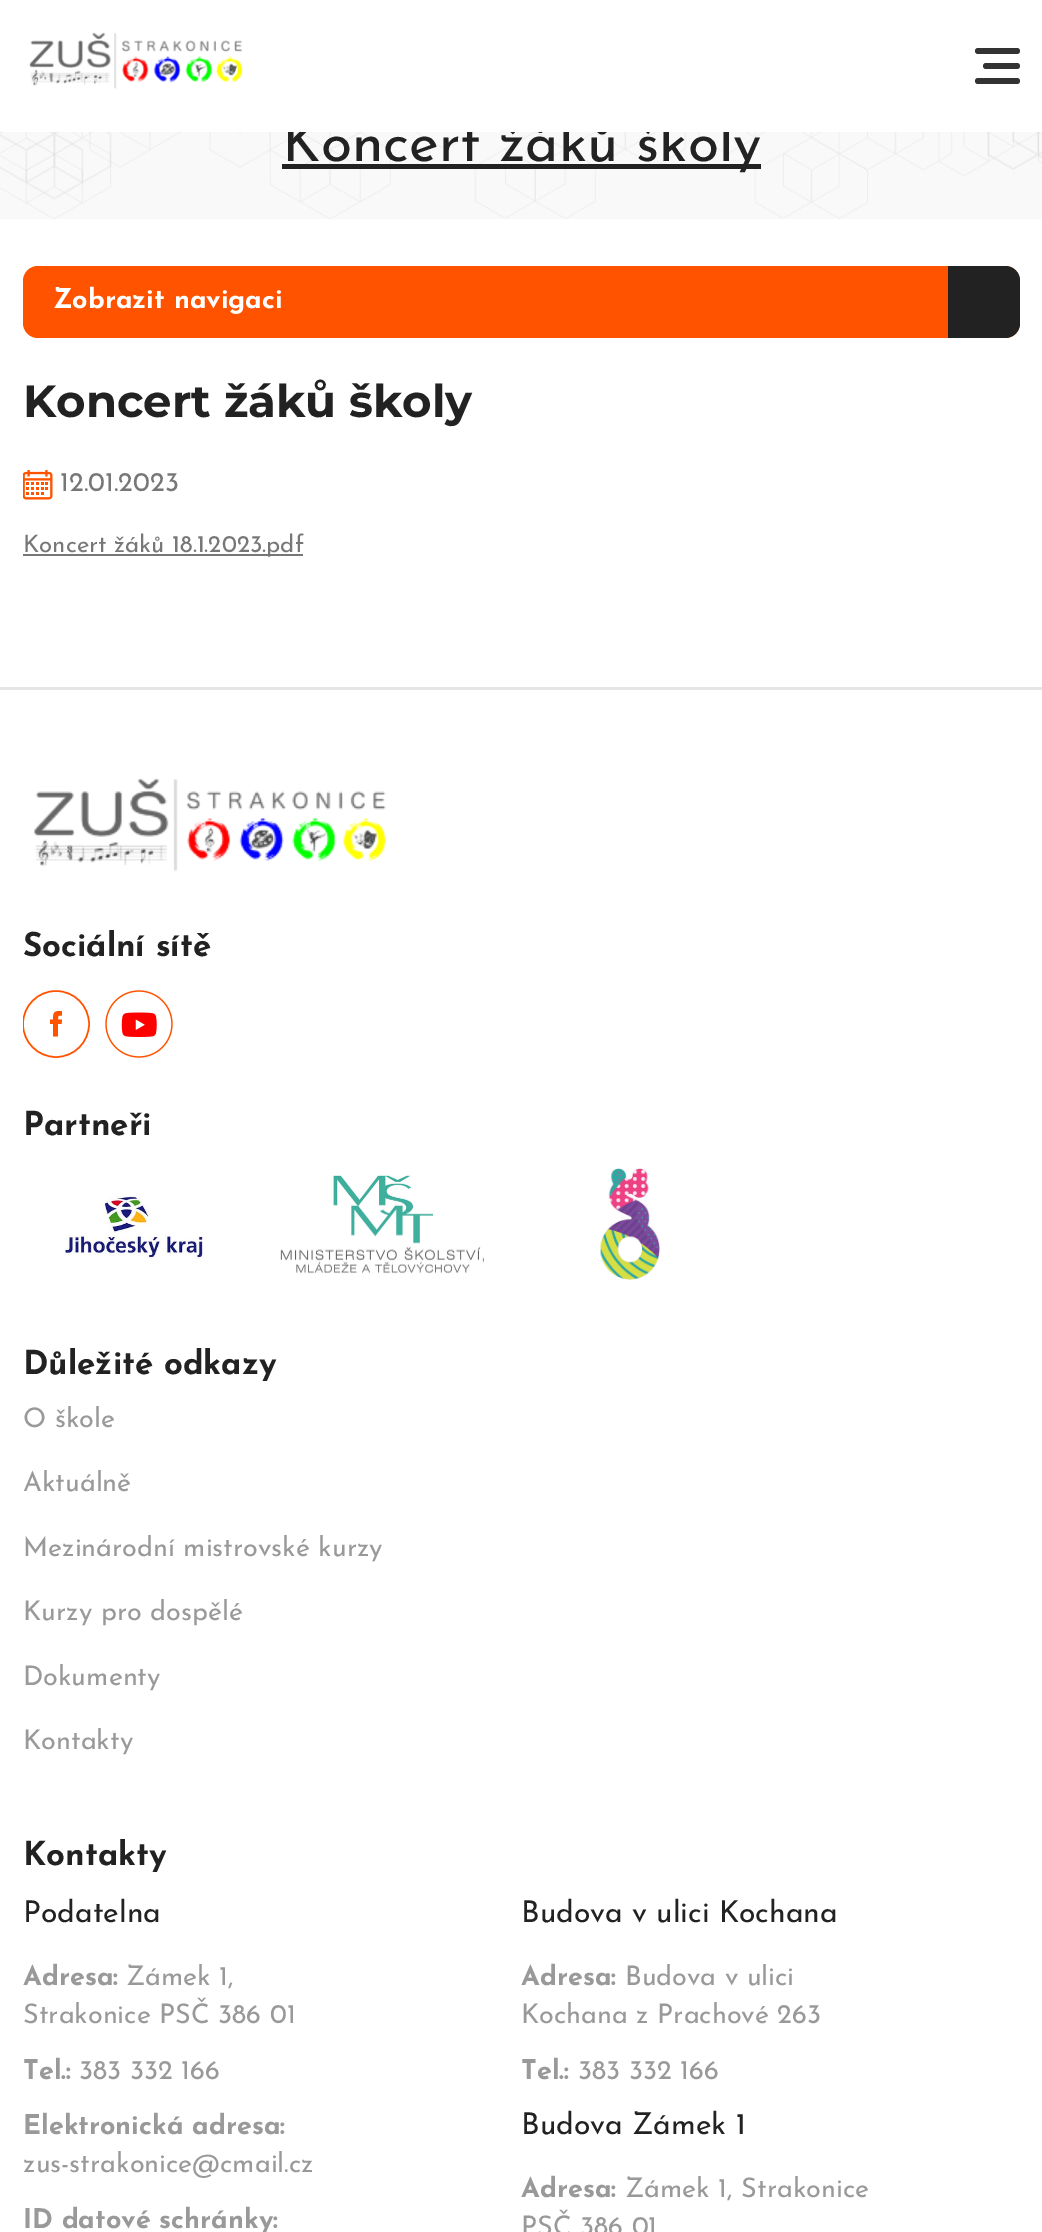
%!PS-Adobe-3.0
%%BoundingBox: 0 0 1042 2232
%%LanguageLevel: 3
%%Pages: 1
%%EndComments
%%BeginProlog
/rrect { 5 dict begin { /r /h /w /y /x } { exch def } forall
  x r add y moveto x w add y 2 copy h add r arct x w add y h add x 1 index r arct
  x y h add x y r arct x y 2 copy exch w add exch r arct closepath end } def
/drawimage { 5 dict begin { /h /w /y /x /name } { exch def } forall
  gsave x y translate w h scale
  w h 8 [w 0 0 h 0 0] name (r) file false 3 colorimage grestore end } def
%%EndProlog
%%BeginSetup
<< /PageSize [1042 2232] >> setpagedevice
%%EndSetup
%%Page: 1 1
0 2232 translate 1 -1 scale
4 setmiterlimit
1 setgray
0 0 1042 2232 rectfill
(images/1.raw) 29 32 214 57 drawimage
0.2 setgray
975 48 45 6 3 rrect fill
983 63 37 6 3 rrect fill
975 78 45 6 3 rrect fill
(images/2.raw) 0 132 1042 88 drawimage
0.133 setgray
282 164 479 5 rectfill
1 0.325 0 setrgbcolor
23 266 997 72 15 rrect fill
0.133 setgray
newpath 948 266 moveto 1005 266 lineto 1013.5 266 1020 272.5 1020 281 curveto 1020 323 lineto 1020 331.5 1013.5 338 1005 338 curveto 948 338 lineto closepath fill
(images/3.raw) 23 470 30 30 drawimage
0.467 setgray
23 554 280 2 rectfill
0.898 setgray
0 687 1042 3 rectfill
(images/4.raw) 34 778 352 94 drawimage
gsave
23 990 67 68 rectclip
1 0.325 0 setrgbcolor
1.5 setlinewidth
newpath 56 1024 33 0 360 arc closepath stroke
grestore
1 0.325 0 setrgbcolor
newpath 62 1019.5 moveto 61.5 1024 lineto 58 1024 lineto 58 1036.5 lineto 53 1036.5 lineto 53 1024 lineto 50 1024 lineto 50 1019.5 lineto 53 1019.5 lineto 53 1011.5 54.5 1011 62 1011 curveto 62 1015.5 lineto 58 1015.5 58 1015.5 58 1019.5 curveto closepath fill
(images/5.raw) 105 990 68 68 drawimage
(images/6.raw) 65 1196 139 63 drawimage
(images/7.raw) 280 1175 204 99 drawimage
(images/8.raw) 600 1168 61 112 drawimage
/JosefinSans-Regular [57 0 0 -57 0 0] selectfont
0.133 setgray
282 161 moveto (Koncert žáků školy) show
1 setgray
287 116 442 16 rectfill
/JosefinSans-Bold [27 0 0 -27 0 0] selectfont
53 308 moveto (Zobrazit navigaci) show
/Montserrat-Bold [45 0 0 -45 0 0] selectfont
0.133 setgray
23 417 moveto (Koncert žáků školy) show
/JosefinSans-Regular [27 0 0 -27 0 0] selectfont
0.467 setgray
60 491 moveto (12.01.2023) show
/JosefinSans-Regular [24 0 0 -24 0 0] selectfont
23 552 moveto (Koncert žáků 18.1.2023.pdf) show
/JosefinSans-Bold [33 0 0 -33 0 0] selectfont
0.133 setgray
23 956 moveto (Sociální sítě) show
23 1135 moveto (Partneři) show
23 1374 moveto (Důležité odkazy) show
/JosefinSans-Regular [27 0 0 -27 0 0] selectfont
0.6 setgray
23 1427 moveto (O škole) show
23 1491 moveto (Aktuálně) show
23 1556 moveto (Mezinárodní mistrovské kurzy) show
23 1620 moveto (Kurzy pro dospělé) show
23 1685 moveto (Dokumenty) show
23 1749 moveto (Kontakty) show
/JosefinSans-Bold [33 0 0 -33 0 0] selectfont
0.133 setgray
23 1865 moveto (Kontakty) show
/JosefinSans-Regular [30 0 0 -30 0 0] selectfont
23 1922 moveto (Podatelna) show
/JosefinSans-Bold [27 0 0 -27 0 0] selectfont
0.6 setgray
23 1985 moveto (Adresa:) show
/JosefinSans-Regular [27 0 0 -27 0 0] selectfont
126 1985 moveto (Zámek 1,) show
23 2023 moveto (Strakonice PSČ 386 01) show
/JosefinSans-Bold [27 0 0 -27 0 0] selectfont
23 2079 moveto (Tel.:) show
/JosefinSans-Regular [27 0 0 -27 0 0] selectfont
79 2079 moveto (383 332 166) show
/JosefinSans-Bold [27 0 0 -27 0 0] selectfont
23 2134 moveto (Elektronická adresa:) show
/JosefinSans-Regular [27 0 0 -27 0 0] selectfont
23 2172 moveto (zus-strakonice@cmail.cz) show
/JosefinSans-Bold [27 0 0 -27 0 0] selectfont
23 2228 moveto (ID datové schránky:) show
/JosefinSans-Regular [30 0 0 -30 0 0] selectfont
0.133 setgray
521 1922 moveto (Budova v ulici Kochana) show
/JosefinSans-Bold [27 0 0 -27 0 0] selectfont
0.6 setgray
521 1985 moveto (Adresa:) show
/JosefinSans-Regular [27 0 0 -27 0 0] selectfont
625 1985 moveto (Budova v ulici) show
521 2023 moveto (Kochana z Prachové 263) show
/JosefinSans-Bold [27 0 0 -27 0 0] selectfont
521 2079 moveto (Tel.:) show
/JosefinSans-Regular [27 0 0 -27 0 0] selectfont
578 2079 moveto (383 332 166) show
/JosefinSans-Regular [30 0 0 -30 0 0] selectfont
0.133 setgray
521 2134 moveto (Budova Zámek 1) show
/JosefinSans-Bold [27 0 0 -27 0 0] selectfont
0.6 setgray
521 2197 moveto (Adresa:) show
/JosefinSans-Regular [27 0 0 -27 0 0] selectfont
625 2197 moveto (Zámek 1, Strakonice) show
521 2235 moveto (PSČ 386 01) show
showpage
%%EOF
